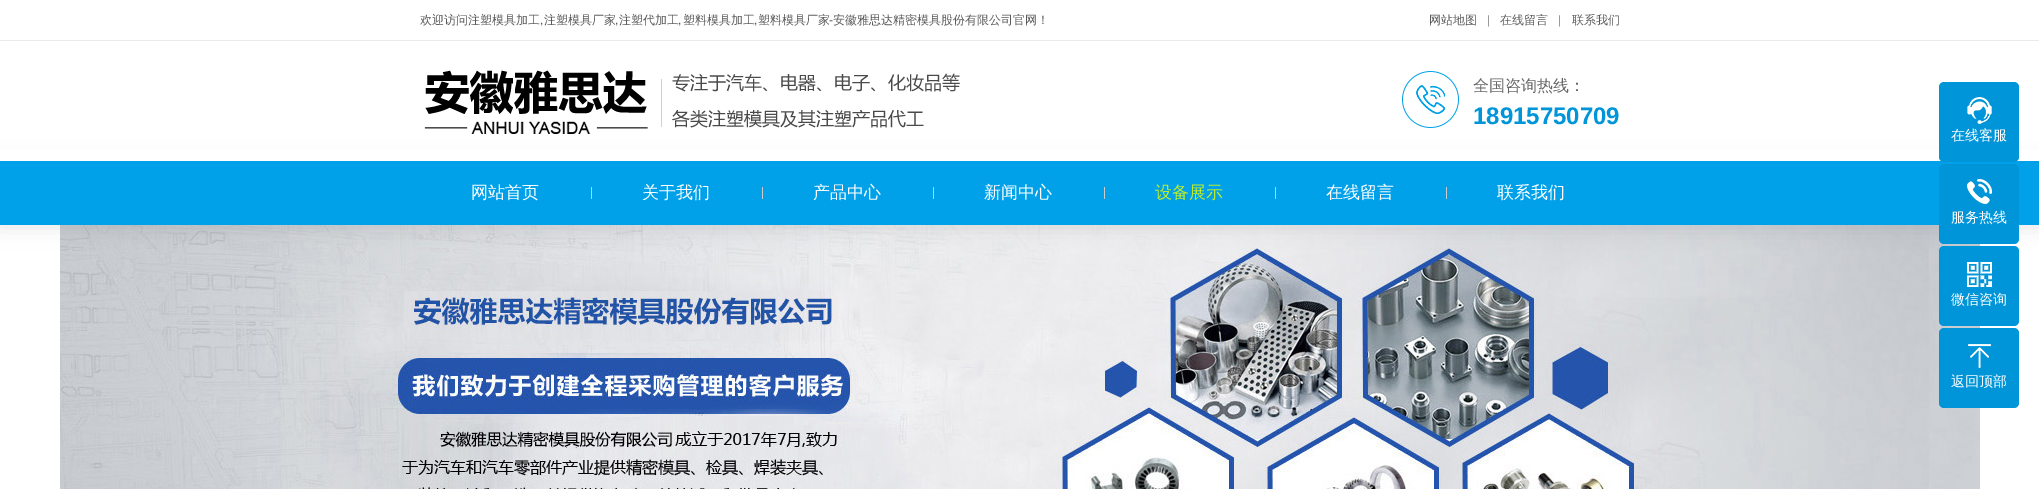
%!PS-Adobe-3.0
%%BoundingBox: 0 0 2039 489
%%LanguageLevel: 3
%%Pages: 1
%%EndComments
%%BeginProlog
/setalpha { dup .setfillconstantalpha .setstrokeconstantalpha } def
/rrect { 5 dict begin { /r /h /w /y /x } { exch def } forall
  x r add y moveto x w add y 2 copy h add r arct x w add y h add x 1 index r arct
  x y h add x y r arct x y 2 copy exch w add exch r arct closepath end } def
/softshadow { 12 dict begin { /a /b /q /h /w /y /x } { exch def } forall gsave /was 0 def
  9 -2 -9 { dup b mul 4 div /e exch def 1 sub .425 mul 2.718 exch exp 1 add a .99 .min exch div /now exch def
    1 1 now sub 1 was sub div sub setalpha /was now def
    w h .min e 2 mul add 0 gt { x e sub y e sub w e 2 mul add h e 2 mul add
      q e add b .6 mul add w h .min 2 div e add .min 0 .max rrect fill } if } for grestore end } def
/drawimage { 5 dict begin { /h /w /y /x /name } { exch def } forall
  gsave x y translate w h scale
  w h 8 [w 0 0 h 0 0] name (r) file false 3 colorimage grestore end } def
%%EndProlog
%%BeginSetup
<< /PageSize [2039 489] /PageUsesTransparency true >> setpagedevice
%%EndSetup
%%Page: 1 1
0 .pushpdf14devicefilter
0 489 translate 1 -1 scale
4 setmiterlimit
1 setgray
0 0 2039 489 rectfill
0.918 setgray
0 40 2039 1 rectfill
(images/7.raw) 60 225 1920 264 drawimage
0 setgray
0 163 2039 64 0 10 0.1 softshadow
1 setgray
0 150 2039 11 rectfill
(images/1.raw) 424 70 536 64 drawimage
(images/2.raw) 1402 71 57 57 drawimage
0 0.631 0.91 setrgbcolor
0 161 2039 64 rectfill
0.8 setgray
591 187 1 12 rectfill
762 187 1 12 rectfill
933 187 1 12 rectfill
1104 187 1 12 rectfill
1275 187 1 12 rectfill
1446 187 1 12 rectfill
0 0.584 0.851 setrgbcolor
1939 82 80 80 5 rrect fill
(images/3.raw) 1967 97 25 27 drawimage
1939 164 80 80 5 rrect fill
(images/4.raw) 1967 179 25 25 drawimage
1939 246 80 80 5 rrect fill
(images/5.raw) 1967 262 25 25 drawimage
1939 328 80 80 5 rrect fill
(images/6.raw) 1968 344 23 24 drawimage
/WenQuanYiZenHei-Medium [12 0 0 -12 0 0] selectfont
0.353 setgray
420 24 moveto (欢迎访问注塑模具加工 注塑模具厂家 注塑代加工 塑料模具加工 塑料模具厂家) show
/LiberationSans-Regular [12 0 0 -12 0 0] selectfont
829 24 moveto (-) show
/WenQuanYiZenHei-Medium [12 0 0 -12 0 0] selectfont
833 24 moveto (安徽雅思达精密模具股份有限公司官网！) show
1429 24 moveto (网站地图) show
/LiberationSans-Regular [12 0 0 -12 0 0] selectfont
0.6 setgray
1487 24 moveto (|) show
/WenQuanYiZenHei-Medium [12 0 0 -12 0 0] selectfont
0.353 setgray
1500 24 moveto (在线留言) show
/LiberationSans-Regular [12 0 0 -12 0 0] selectfont
0.6 setgray
1558 24 moveto (|) show
/WenQuanYiZenHei-Medium [12 0 0 -12 0 0] selectfont
0.353 setgray
1572 24 moveto (联系我们) show
/LiberationSans-Regular [12 0 0 -12 0 0] selectfont
540 24 moveto (,) show
615 24 moveto (,) show
678 24 moveto (,) show
754 24 moveto (,) show
/WenQuanYiZenHei-Medium [16 0 0 -16 0 0] selectfont
0.4 setgray
1473 91 moveto (全国咨询热线：) show
/LiberationSans-Bold [24 0 0 -24 0 0] selectfont
0 0.584 0.851 setrgbcolor
1473 124 moveto (18915750709) show
/WenQuanYiZenHei-Medium [17 0 0 -17 0 0] selectfont
1 setgray
471 198 moveto (网站首页) show
642 198 moveto (关于我们) show
813 198 moveto (产品中心) show
984 198 moveto (新闻中心) show
0.741 0.925 0.169 setrgbcolor
1155 198 moveto (设备展示) show
1 setgray
1326 198 moveto (在线留言) show
1497 198 moveto (联系我们) show
/WenQuanYiZenHei-Medium [14 0 0 -14 0 0] selectfont
1951 140 moveto (在线客服) show
1951 222 moveto (服务热线) show
1951 304 moveto (微信咨询) show
1951 386 moveto (返回顶部) show
.poppdf14devicefilter showpage
%%EOF
